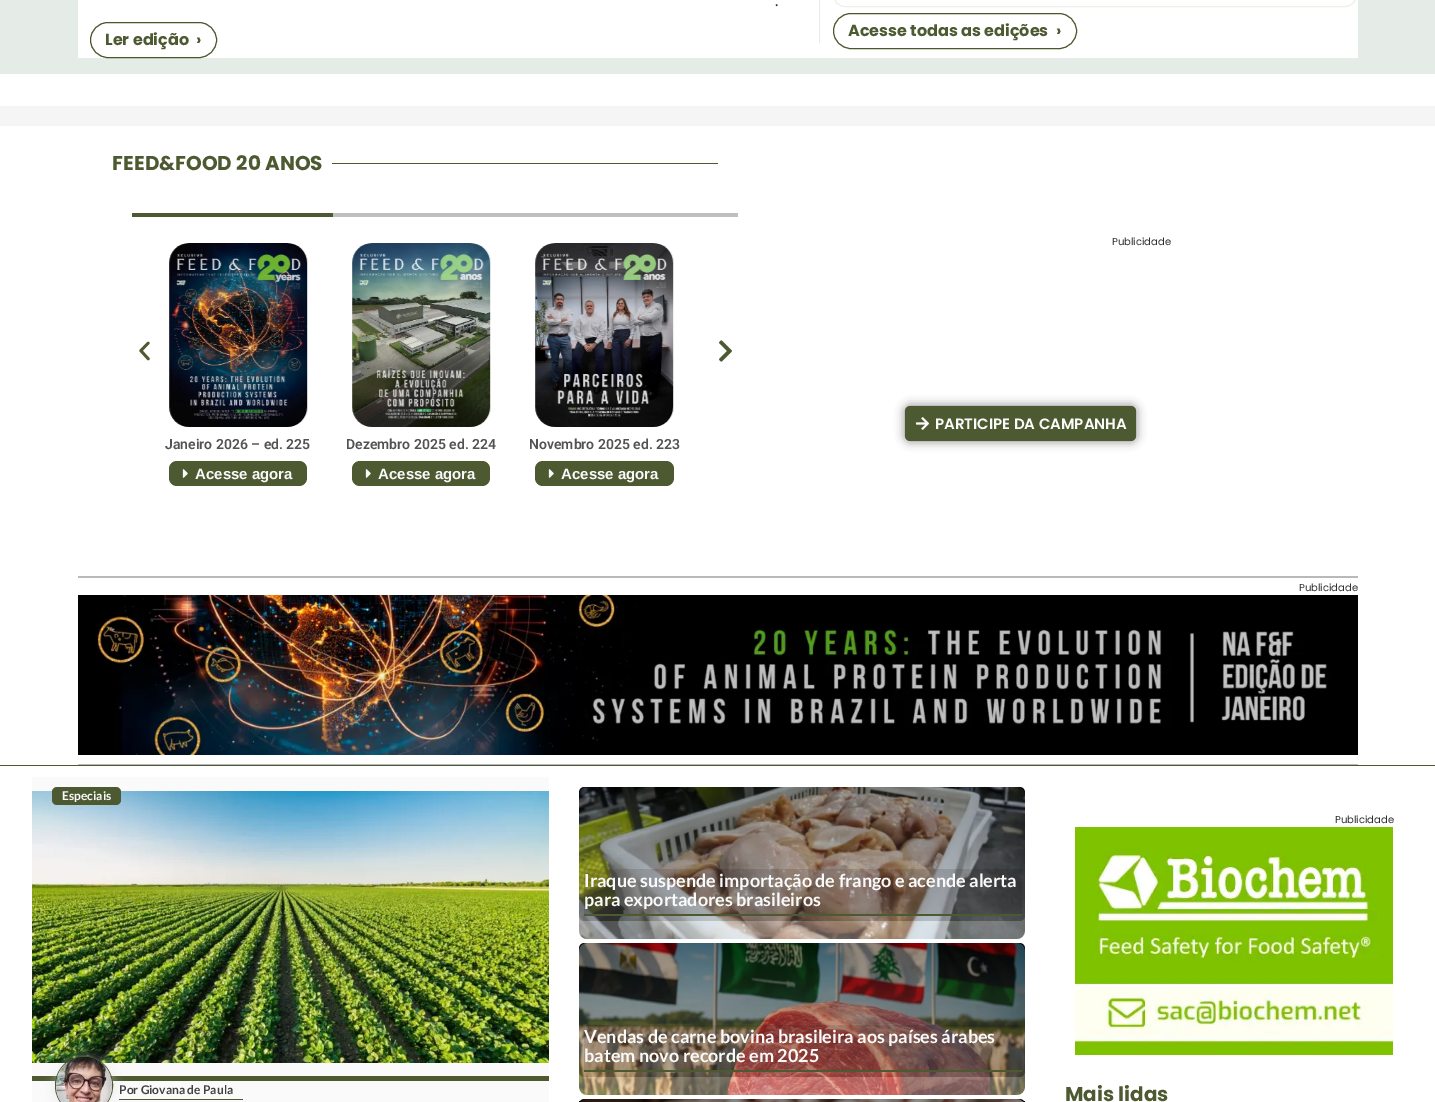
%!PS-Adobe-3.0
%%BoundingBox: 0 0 1435 1102
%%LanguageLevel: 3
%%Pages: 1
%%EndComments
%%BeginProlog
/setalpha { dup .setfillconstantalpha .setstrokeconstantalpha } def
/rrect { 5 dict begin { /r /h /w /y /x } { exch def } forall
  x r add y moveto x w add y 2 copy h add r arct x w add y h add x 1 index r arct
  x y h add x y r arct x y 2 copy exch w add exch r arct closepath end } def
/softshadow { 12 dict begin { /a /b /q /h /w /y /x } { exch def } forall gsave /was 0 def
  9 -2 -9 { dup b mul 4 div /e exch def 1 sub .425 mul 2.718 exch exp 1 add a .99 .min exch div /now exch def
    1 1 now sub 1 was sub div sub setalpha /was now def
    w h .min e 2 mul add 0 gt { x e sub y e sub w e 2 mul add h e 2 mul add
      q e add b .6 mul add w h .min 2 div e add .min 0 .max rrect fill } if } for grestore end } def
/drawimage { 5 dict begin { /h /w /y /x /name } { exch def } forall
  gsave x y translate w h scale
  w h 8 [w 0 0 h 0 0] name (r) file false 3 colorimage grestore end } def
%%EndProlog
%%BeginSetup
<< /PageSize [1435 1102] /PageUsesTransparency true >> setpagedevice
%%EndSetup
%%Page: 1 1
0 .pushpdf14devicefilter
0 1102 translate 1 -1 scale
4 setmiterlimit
1 setgray
0 0 1435 1102 rectfill
0.898 0.925 0.906 setrgbcolor
0 0 1435 74 rectfill
1 setgray
78 0 1280 58 rectfill
0.29 0.341 0.165 setrgbcolor
90.5 22.5 126 35 17.5 rrect stroke
0.933 0.941 0.902 setrgbcolor
833.5 -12.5 523 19 11.5 rrect stroke
0.906 0.922 0.882 setrgbcolor
819 -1 1 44 0.5 rrect fill
0.29 0.341 0.165 setrgbcolor
833.5 13.5 243 35 17.5 rrect stroke
0.961 setgray
0 106 1435 20 rectfill
0.302 0.353 0.192 setrgbcolor
332 163 386 1 rectfill
0.749 setgray
333 213 405 4 rectfill
0.302 0.353 0.192 setrgbcolor
132 213 201 4 rectfill
(images/1.raw) 139 341 11 20 drawimage
(images/2.raw) 719 340 13 22 drawimage
(images/3.raw) 169 243 139 184 drawimage
169 461 138 25 8 rrect fill
(images/4.raw) 182 469 6 9 drawimage
(images/5.raw) 352 243 139 184 drawimage
352 461 138 25 8 rrect fill
(images/4.raw) 365 469 6 9 drawimage
(images/6.raw) 535 243 139 184 drawimage
535 461 139 25 8 rrect fill
(images/4.raw) 548 469 6 9 drawimage
0 setgray
905 406 231 35 5 5 0.5 softshadow
0.302 0.353 0.192 setrgbcolor
905 406 231 35 5 rrect fill
(images/7.raw) 915 417 14 13 drawimage
0.725 setgray
78 576 1280 2 rectfill
(images/8.raw) 78 595 1280 160 drawimage
78 764 1280 1 rectfill
0.302 0.353 0.192 setrgbcolor
0 765 1435 1 rectfill
0.98 setgray
32 777 517 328 3 rrect fill
0.302 0.353 0.192 setrgbcolor
32 1076 517 5 rectfill
(images/9.raw) 32 791 517 272 drawimage
52 787 69 18 5 rrect fill
0.855 setgray
55 1056 58 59 29 5 0.5 softshadow
0.302 0.353 0.192 setrgbcolor
55.5 1056.5 57 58 28.5 rrect stroke
(images/10.raw) 56 1057 56 45 drawimage
119 1099 124 1 rectfill
gsave 579 787 446 134 5 rrect clip newpath
<< /ShadingType 2 /ColorSpace /DeviceRGB /Coords [802 787 802 921] /Extend [true true] /Function << /FunctionType 2 /Domain [0 1] /C0 [0 0 0] /C1 [0.549 0.549 0.549] /N 1 >> >> shfill grestore
(images/11.raw) 579 787 446 152 drawimage
0.12 setalpha
0.059 0 0 setrgbcolor
584 869 438 45 rectfill
1 setalpha
0.302 0.353 0.192 setrgbcolor
584 914 438 2 rectfill
gsave 579 943 446 134 5 rrect clip newpath
<< /ShadingType 2 /ColorSpace /DeviceRGB /Coords [802 943 802 1077] /Extend [true true] /Function << /FunctionType 2 /Domain [0 1] /C0 [0 0 0] /C1 [0.549 0.549 0.549] /N 1 >> >> shfill grestore
(images/12.raw) 579 943 446 152 drawimage
0.12 setalpha
0.059 0 0 setrgbcolor
584 1025 438 45 rectfill
1 setalpha
0.302 0.353 0.192 setrgbcolor
584 1070 438 2 rectfill
gsave 579 1099 446 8 5 rrect clip newpath
<< /ShadingType 2 /ColorSpace /DeviceRGB /Coords [802 1099 802 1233] /Extend [true true] /Function << /FunctionType 2 /Domain [0 1] /C0 [0 0 0] /C1 [0.549 0.549 0.549] /N 1 >> >> shfill grestore
(images/13.raw) 580 1099 444 3 drawimage
(images/14.raw) 1075 827 318 228 drawimage
/Poppins-Regular [16 0 0 -16 0 0] selectfont
0.184 setgray
775 6 moveto (.) show
/Poppins-Bold [16 0 0 -16 0 0] selectfont
0.302 0.353 0.192 setrgbcolor
105 45 moveto (Ler edição) show
196 45 moveto (›) show
848 36 moveto (Acesse todas as edições) show
1056 36 moveto (›) show
/Poppins-Bold [20 0 0 -20 0 0] selectfont
112 170 moveto (FEED&FOOD 20 ANOS) show
/Roboto-SemiBold [14 0 0 -14 0 0] selectfont
0.325 setgray
165 449 moveto (Janeiro 2026 – ed. 225) show
/LiberationSans-Bold [15 0 0 -15 0 0] selectfont
0.98 setgray
195 479 moveto (Acesse agora) show
/Roboto-SemiBold [14 0 0 -14 0 0] selectfont
0.325 setgray
346 449 moveto (Dezembro 2025 ed. 224) show
/LiberationSans-Bold [15 0 0 -15 0 0] selectfont
0.98 setgray
378 479 moveto (Acesse agora) show
/Roboto-SemiBold [14 0 0 -14 0 0] selectfont
0.325 setgray
529 449 moveto (Novembro 2025 ed. 223) show
/LiberationSans-Bold [15 0 0 -15 0 0] selectfont
0.98 setgray
561 479 moveto (Acesse agora) show
/Poppins-Regular [10 0 0 -10 0 0] selectfont
0.184 setgray
1112 245 moveto (Publicidade) show
/Poppins-SemiBold [15 0 0 -15 0 0] selectfont
0.98 setgray
935 429 moveto (PARTICIPE DA CAMPANHA) show
/Poppins-Regular [10 0 0 -10 0 0] selectfont
0.184 setgray
1299 591 moveto (Publicidade) show
/Lato-Bold [12 0 0 -12 0 0] selectfont
0.98 setgray
62 800 moveto (Especiais) show
0.255 setgray
119 1094 moveto (Por Giovana de Paula) show
/Lato-Bold [18 0 0 -18 0 0] selectfont
0.98 setgray
584 887 moveto (Iraque suspende importação de frango e acende alerta) show
584 906 moveto (para exportadores brasileiros) show
584 1043 moveto (Vendas de carne bovina brasileira aos países árabes) show
584 1062 moveto (batem novo recorde em 2025) show
/Poppins-Regular [10 0 0 -10 0 0] selectfont
0.184 setgray
1335 823 moveto (Publicidade) show
/Poppins-Bold [20 0 0 -20 0 0] selectfont
0.302 0.353 0.192 setrgbcolor
1065 1101 moveto (Mais lidas) show
.poppdf14devicefilter showpage
%%EOF
